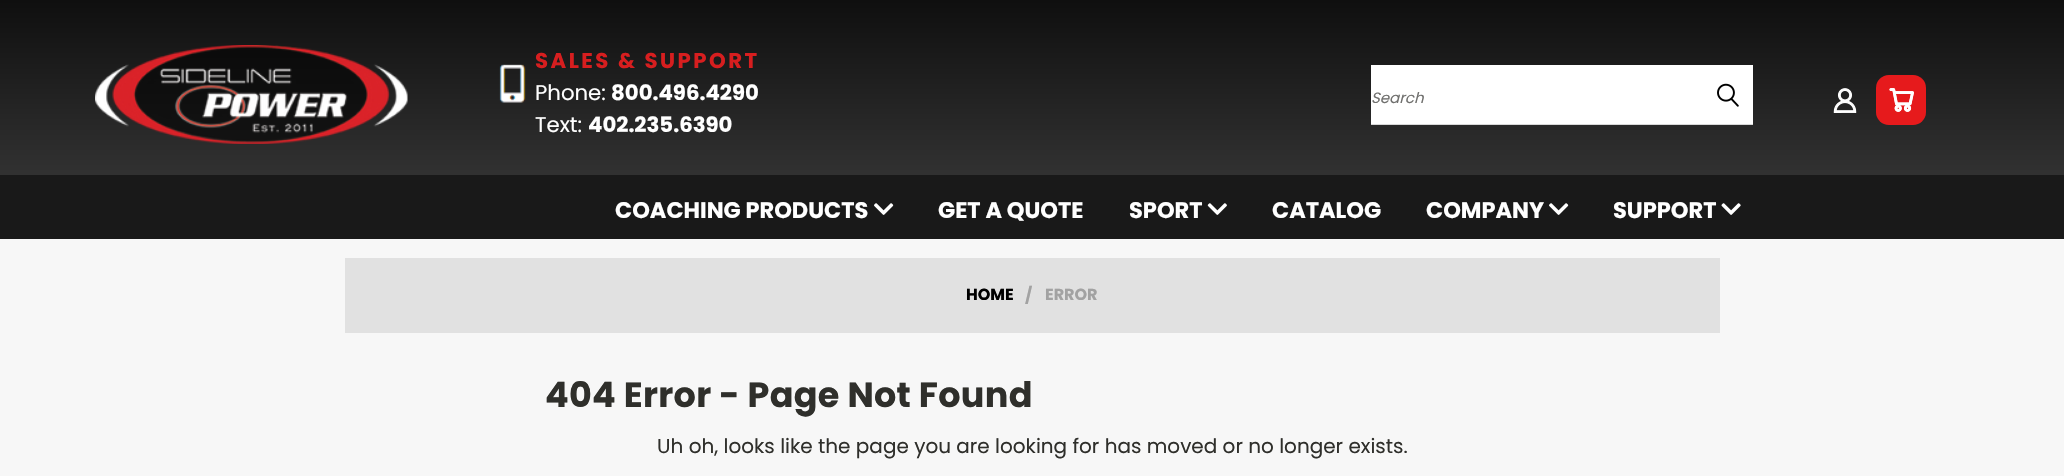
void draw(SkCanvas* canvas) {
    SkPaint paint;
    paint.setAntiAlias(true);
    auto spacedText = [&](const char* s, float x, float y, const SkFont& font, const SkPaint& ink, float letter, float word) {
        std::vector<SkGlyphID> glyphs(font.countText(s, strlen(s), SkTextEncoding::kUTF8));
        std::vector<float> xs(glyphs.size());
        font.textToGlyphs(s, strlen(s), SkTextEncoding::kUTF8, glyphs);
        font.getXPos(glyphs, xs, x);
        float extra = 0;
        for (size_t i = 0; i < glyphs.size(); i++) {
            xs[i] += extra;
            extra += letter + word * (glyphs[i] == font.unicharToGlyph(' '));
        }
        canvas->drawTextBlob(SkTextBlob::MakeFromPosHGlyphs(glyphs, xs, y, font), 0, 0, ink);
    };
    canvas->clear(0xFFF7F7F7);
    {
        const SkColor colors[] = {0xFF0F0F0F, 0xFF3E3E3E};
        const float stops[] = {0, 1};
        const SkPoint ends[] = {{1033, 0}, {1033, 239}};
        paint.setShader(SkGradientShader::MakeLinear(ends, colors, stops, 2, SkTileMode::kClamp));
        paint.setAlpha(255);
    }
    canvas->drawRect(SkRect::MakeXYWH(0, 0, 2064, 175), paint);
    canvas->drawImageRect(SkImages::DeferredFromEncodedData(SkData::MakeFromFileName("img1.png")), SkRect::MakeXYWH(95, 45, 313, 99), SkSamplingOptions());
    canvas->drawImageRect(SkImages::DeferredFromEncodedData(SkData::MakeFromFileName("img2.png")), SkRect::MakeXYWH(499, 64, 27, 39), SkSamplingOptions());
    SkFont font1(fontMgr->matchFamilyStyle("Poppins", SkFontStyle::Bold()), 21.25f);
    font1.setSubpixel(true);
    paint.setShader(nullptr);
    paint.setColor(0xFFD71E1F);
    spacedText("SALES & SUPPORT", 535, 68, font1, paint, 2.5f, 0);
    SkFont font2(fontMgr->matchFamilyStyle("Poppins", SkFontStyle::Normal()), 21.25f);
    font2.setSubpixel(true);
    paint.setColor(0xFFFFFFFF);
    canvas->drawString("Phone:", 535, 100, font2, paint);
    canvas->drawString("800.496.4290", 611, 100, font1, paint);
    canvas->drawString("Text:", 535, 132, font2, paint);
    canvas->drawString("402.235.6390", 588, 132, font1, paint);
    canvas->drawRect(SkRect::MakeXYWH(1371, 65, 382, 59), paint);
    paint.setColor(0xFFD7D7D7);
    canvas->drawRect(SkRect::MakeXYWH(1371, 124, 382, 1), paint);
    SkFont font3(fontMgr->matchFamilyStyle("Poppins", SkFontStyle::Italic()), 15);
    font3.setSubpixel(true);
    paint.setColor(0xFF70706E);
    canvas->drawString("Search", 1371, 103, font3, paint);
    canvas->drawImageRect(SkImages::DeferredFromEncodedData(SkData::MakeFromFileName("img3.png")), SkRect::MakeXYWH(1717, 83, 22, 24), SkSamplingOptions());
    canvas->drawImageRect(SkImages::DeferredFromEncodedData(SkData::MakeFromFileName("img4.png")), SkRect::MakeXYWH(1833, 88, 24, 25), SkSamplingOptions());
    paint.setColor(0xFFE61A1C);
    canvas->drawRoundRect(SkRect::MakeXYWH(1876, 75, 50, 50), 13, 13, paint);
    canvas->drawImageRect(SkImages::DeferredFromEncodedData(SkData::MakeFromFileName("img5.png")), SkRect::MakeXYWH(1889, 88, 25, 24), SkSamplingOptions());
    paint.setColor(0xFF191919);
    canvas->drawRect(SkRect::MakeXYWH(0, 175, 2064, 64), paint);
    SkFont font4(fontMgr->matchFamilyStyle("Poppins", SkFontStyle::Bold()), 22.5f);
    font4.setSubpixel(true);
    paint.setColor(0xFFFFFFFF);
    canvas->drawString("COACHING PRODUCTS", 615, 218, font4, paint);
    canvas->drawImageRect(SkImages::DeferredFromEncodedData(SkData::MakeFromFileName("img6.png")), SkRect::MakeXYWH(874, 203, 20, 12), SkSamplingOptions());
    canvas->drawString("GET A QUOTE", 938, 218, font4, paint);
    canvas->drawString("SPORT", 1129, 218, font4, paint);
    canvas->drawImageRect(SkImages::DeferredFromEncodedData(SkData::MakeFromFileName("img7.png")), SkRect::MakeXYWH(1207, 203, 20, 12), SkSamplingOptions());
    canvas->drawString("CATALOG", 1272, 218, font4, paint);
    canvas->drawString("COMPANY", 1426, 218, font4, paint);
    canvas->drawImageRect(SkImages::DeferredFromEncodedData(SkData::MakeFromFileName("img6.png")), SkRect::MakeXYWH(1549, 203, 20, 12), SkSamplingOptions());
    canvas->drawString("SUPPORT", 1613, 218, font4, paint);
    canvas->drawImageRect(SkImages::DeferredFromEncodedData(SkData::MakeFromFileName("img8.png")), SkRect::MakeXYWH(1721, 203, 20, 12), SkSamplingOptions());
    paint.setColor(0xFFE1E1E1);
    canvas->drawRect(SkRect::MakeXYWH(345, 258, 1375, 75), paint);
    SkFont font5(fontMgr->matchFamilyStyle("Poppins", SkFontStyle::Bold()), 16);
    font5.setSubpixel(true);
    paint.setColor(0xFF000000);
    canvas->drawString("HOME", 966, 300, font5, paint);
    paint.setColor(0xFFA2A2A2);
    canvas->drawString("/", 1025, 301, font5, paint);
    canvas->drawString("ERROR", 1045, 300, font5, paint);
    SkFont font6(fontMgr->matchFamilyStyle("Poppins", SkFontStyle::Bold()), 35);
    font6.setSubpixel(true);
    paint.setColor(0xFF2F2F2B);
    spacedText("404 Error - Page Not Found", 545, 407, font6, paint, 0.3f, 0);
    SkFont font7(fontMgr->matchFamilyStyle("Poppins", SkFontStyle::Normal()), 20);
    font7.setSubpixel(true);
    canvas->drawString("Uh oh, looks like the page you are looking for has moved or no longer exists.", 657, 453, font7, paint);
}
